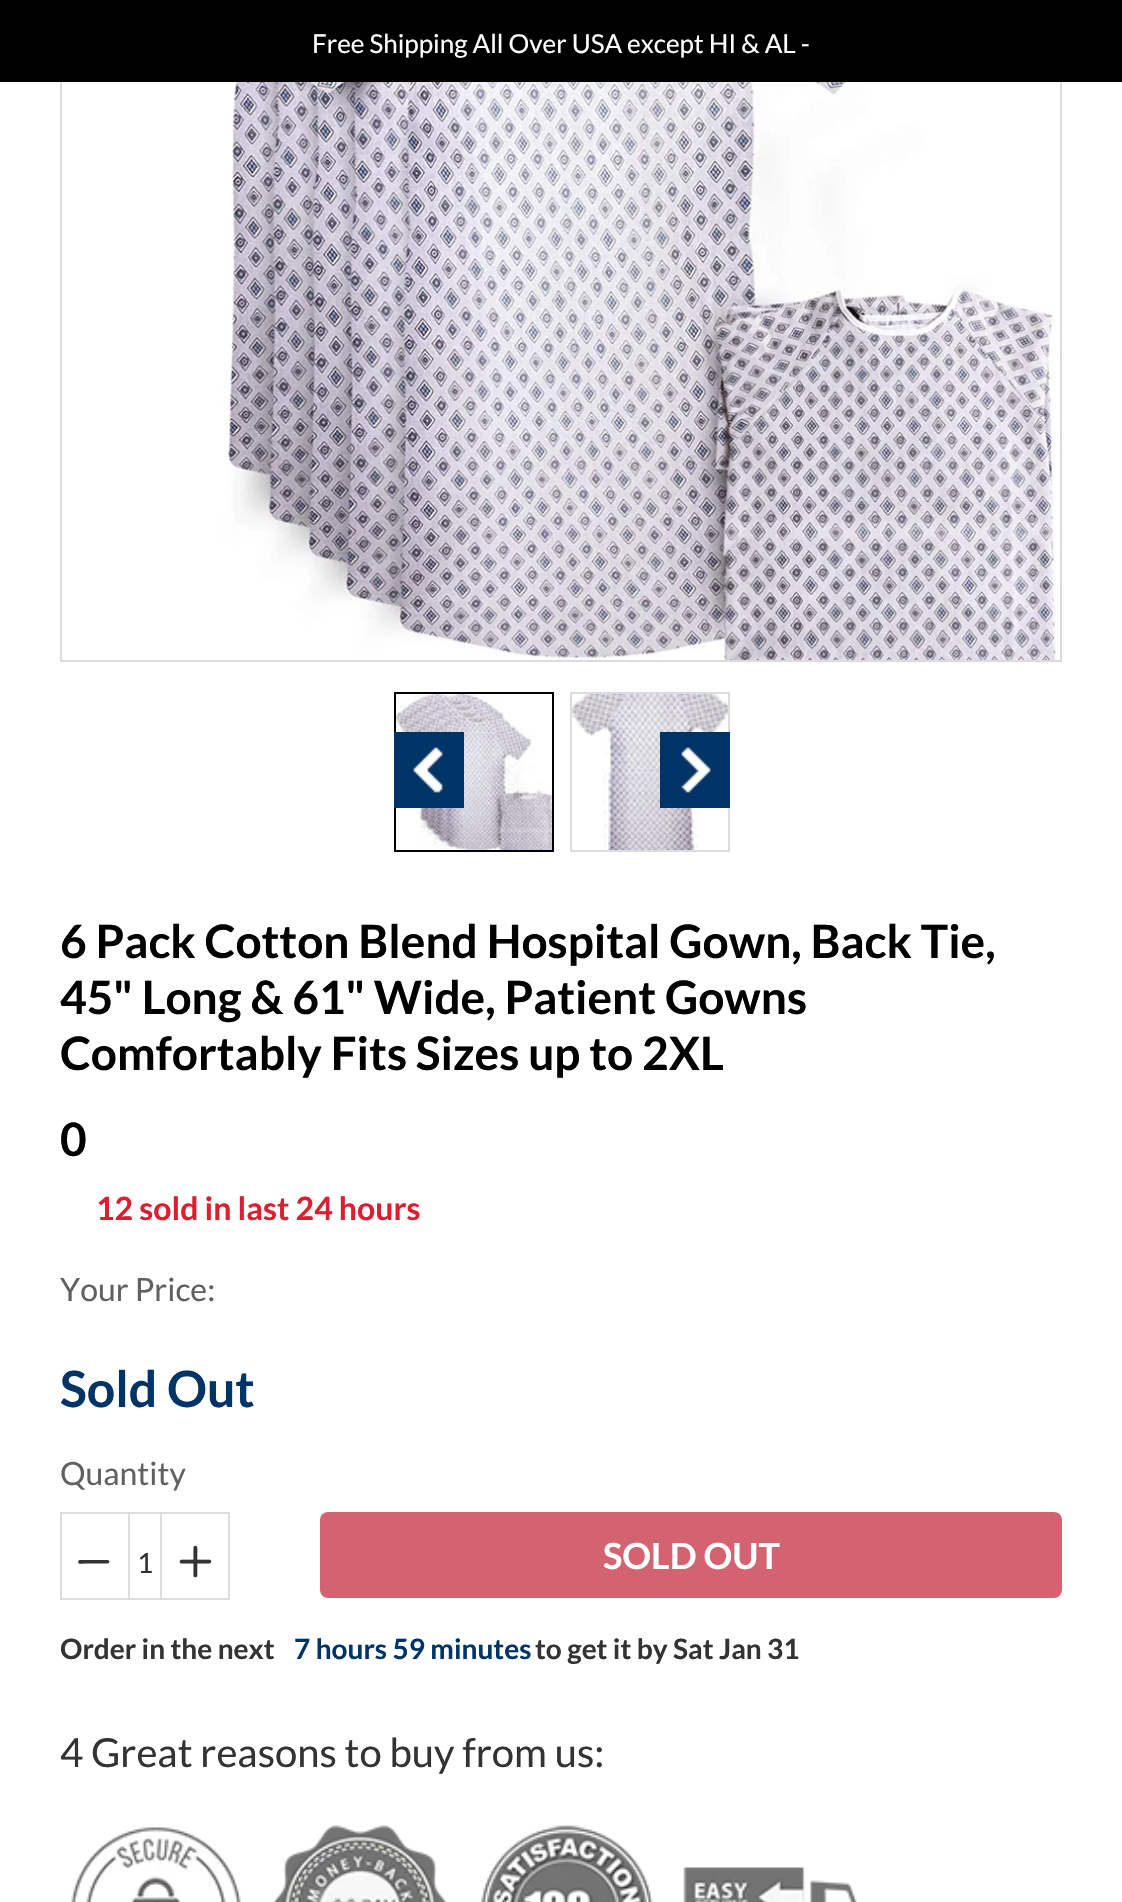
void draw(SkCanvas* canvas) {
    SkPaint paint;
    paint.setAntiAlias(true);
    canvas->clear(0xFFFFFFFF);
    paint.setStyle(SkPaint::kStroke_Style);
    paint.setStrokeWidth(2);
    paint.setColor(0xFFDDDCDC);
    canvas->drawRect(SkRect::MakeXYWH(61, -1, 1000, 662), paint);
    paint.setStyle(SkPaint::kFill_Style);
    paint.setColor(0xFF000000);
    canvas->drawRect(SkRect::MakeXYWH(0, 0, 1122, 82), paint);
    SkFont font1(fontMgr->matchFamilyStyle("Lato", SkFontStyle::Normal()), 26);
    font1.setSubpixel(true);
    paint.setColor(0xFFFFFFFF);
    canvas->drawString("Free Shipping All Over USA except HI & AL -", 312, 53, font1, paint);
    canvas->drawImageRect(SkImages::DeferredFromEncodedData(SkData::MakeFromFileName("img1.png")), SkRect::MakeXYWH(182, 82, 878, 578), SkSamplingOptions());
    paint.setStyle(SkPaint::kStroke_Style);
    paint.setColor(0xFF000000);
    canvas->drawRect(SkRect::MakeXYWH(395, 693, 158, 158), paint);
    canvas->drawImageRect(SkImages::DeferredFromEncodedData(SkData::MakeFromFileName("img2.png")), SkRect::MakeXYWH(396, 694, 156, 156), SkSamplingOptions());
    paint.setColor(0xFFDDDCDC);
    canvas->drawRect(SkRect::MakeXYWH(571, 693, 158, 158), paint);
    canvas->drawImageRect(SkImages::DeferredFromEncodedData(SkData::MakeFromFileName("img3.png")), SkRect::MakeXYWH(572, 694, 156, 156), SkSamplingOptions());
    paint.setStyle(SkPaint::kFill_Style);
    paint.setColor(0xFF003366);
    canvas->drawRect(SkRect::MakeXYWH(394, 732, 70, 76), paint);
    canvas->drawImageRect(SkImages::DeferredFromEncodedData(SkData::MakeFromFileName("img4.png")), SkRect::MakeXYWH(413, 747, 30, 46), SkSamplingOptions());
    canvas->drawRect(SkRect::MakeXYWH(660, 732, 70, 76), paint);
    canvas->drawImageRect(SkImages::DeferredFromEncodedData(SkData::MakeFromFileName("img5.png")), SkRect::MakeXYWH(681, 747, 30, 46), SkSamplingOptions());
    SkFont font2(fontMgr->matchFamilyStyle("Lato", SkFontStyle::Bold()), 46);
    font2.setSubpixel(true);
    paint.setColor(0xFF000000);
    canvas->drawString("6 Pack Cotton Blend Hospital Gown, Back Tie,", 60, 958, font2, paint);
    canvas->drawString("45\" Long & 61\" Wide, Patient Gowns", 60, 1014, font2, paint);
    canvas->drawString("Comfortably Fits Sizes up to 2XL", 60, 1070, font2, paint);
    canvas->drawString("0", 60, 1156, font2, paint);
    SkFont font3(fontMgr->matchFamilyStyle("Lato", SkFontStyle::Bold()), 32);
    font3.setSubpixel(true);
    paint.setColor(0xFFDD1E31);
    canvas->drawString("12 sold in last 24 hours", 96, 1220, font3, paint);
    SkFont font4(fontMgr->matchFamilyStyle("Lato", SkFontStyle::Normal()), 32);
    font4.setSubpixel(true);
    paint.setColor(0xFF606060);
    canvas->drawString("Your Price:", 60, 1301, font4, paint);
    SkFont font5(fontMgr->matchFamilyStyle("Lato", SkFontStyle::Bold()), 50);
    font5.setSubpixel(true);
    paint.setColor(0xFF003366);
    canvas->drawString("Sold Out", 60, 1407, font5, paint);
    paint.setColor(0xFF606060);
    canvas->drawString("Quantity", 60, 1485, font4, paint);
    paint.setStyle(SkPaint::kStroke_Style);
    paint.setColor(0xFFDDDCDC);
    canvas->drawRect(SkRect::MakeXYWH(61, 1513, 168, 86), paint);
    paint.setStyle(SkPaint::kFill_Style);
    canvas->drawRect(SkRect::MakeXYWH(128, 1512, 2, 88), paint);
    paint.setColor(0xFF333333);
    canvas->drawPath(SkPathBuilder().moveTo(107.5f, 1563.5f).lineTo(84.5f, 1563.5f).cubicTo(83.5f, 1563.5f, 79.5f, 1564.5f, 78.5f, 1563).cubicTo(77.5f, 1561.5f, 78.5f, 1560, 80, 1560).lineTo(107.5f, 1560).cubicTo(110, 1560, 110, 1563.5f, 107.5f, 1563.5f).close().detach(), paint);
    SkFont font6(fontMgr->matchFamilyStyle("Lato", SkFontStyle::Normal()), 28);
    font6.setSubpixel(true);
    canvas->drawString("1", 137, 1573, font6, paint);
    paint.setColor(0xFFDDDCDC);
    canvas->drawRect(SkRect::MakeXYWH(160, 1512, 2, 88), paint);
    canvas->drawImageRect(SkImages::DeferredFromEncodedData(SkData::MakeFromFileName("img6.png")), SkRect::MakeXYWH(179, 1545, 33, 33), SkSamplingOptions());
    paint.setColor(0xFFD36370);
    canvas->drawRoundRect(SkRect::MakeXYWH(320, 1512, 742, 86), 8, 8, paint);
    SkFont font7(fontMgr->matchFamilyStyle("Lato", SkFontStyle::Bold()), 36);
    font7.setSubpixel(true);
    paint.setColor(0xFFFFFFFF);
    canvas->drawString("SOLD OUT", 603, 1569, font7, paint);
    SkFont font8(fontMgr->matchFamilyStyle("Lato", SkFontStyle::Bold()), 28);
    font8.setSubpixel(true);
    paint.setColor(0xFF333333);
    canvas->drawString("Order in the next", 60, 1659, font8, paint);
    paint.setColor(0xFF003366);
    canvas->drawString("7 hours 59 minutes", 294, 1659, font8, paint);
    paint.setColor(0xFF333333);
    canvas->drawString("to get it by Sat Jan 31", 535, 1659, font8, paint);
    SkFont font9(fontMgr->matchFamilyStyle("Lato", SkFontStyle::Normal()), 40);
    font9.setSubpixel(true);
    canvas->drawString("4 Great reasons to buy from us:", 60, 1767, font9, paint);
    canvas->drawImageRect(SkImages::DeferredFromEncodedData(SkData::MakeFromFileName("img7.png")), SkRect::MakeXYWH(71, 1827, 170, 75), SkSamplingOptions());
    canvas->drawImageRect(SkImages::DeferredFromEncodedData(SkData::MakeFromFileName("img8.png")), SkRect::MakeXYWH(273, 1825, 174, 77), SkSamplingOptions());
    canvas->drawImageRect(SkImages::DeferredFromEncodedData(SkData::MakeFromFileName("img9.png")), SkRect::MakeXYWH(480, 1825, 173, 77), SkSamplingOptions());
    canvas->drawImageRect(SkImages::DeferredFromEncodedData(SkData::MakeFromFileName("img10.png")), SkRect::MakeXYWH(683, 1867, 174, 35), SkSamplingOptions());
}
